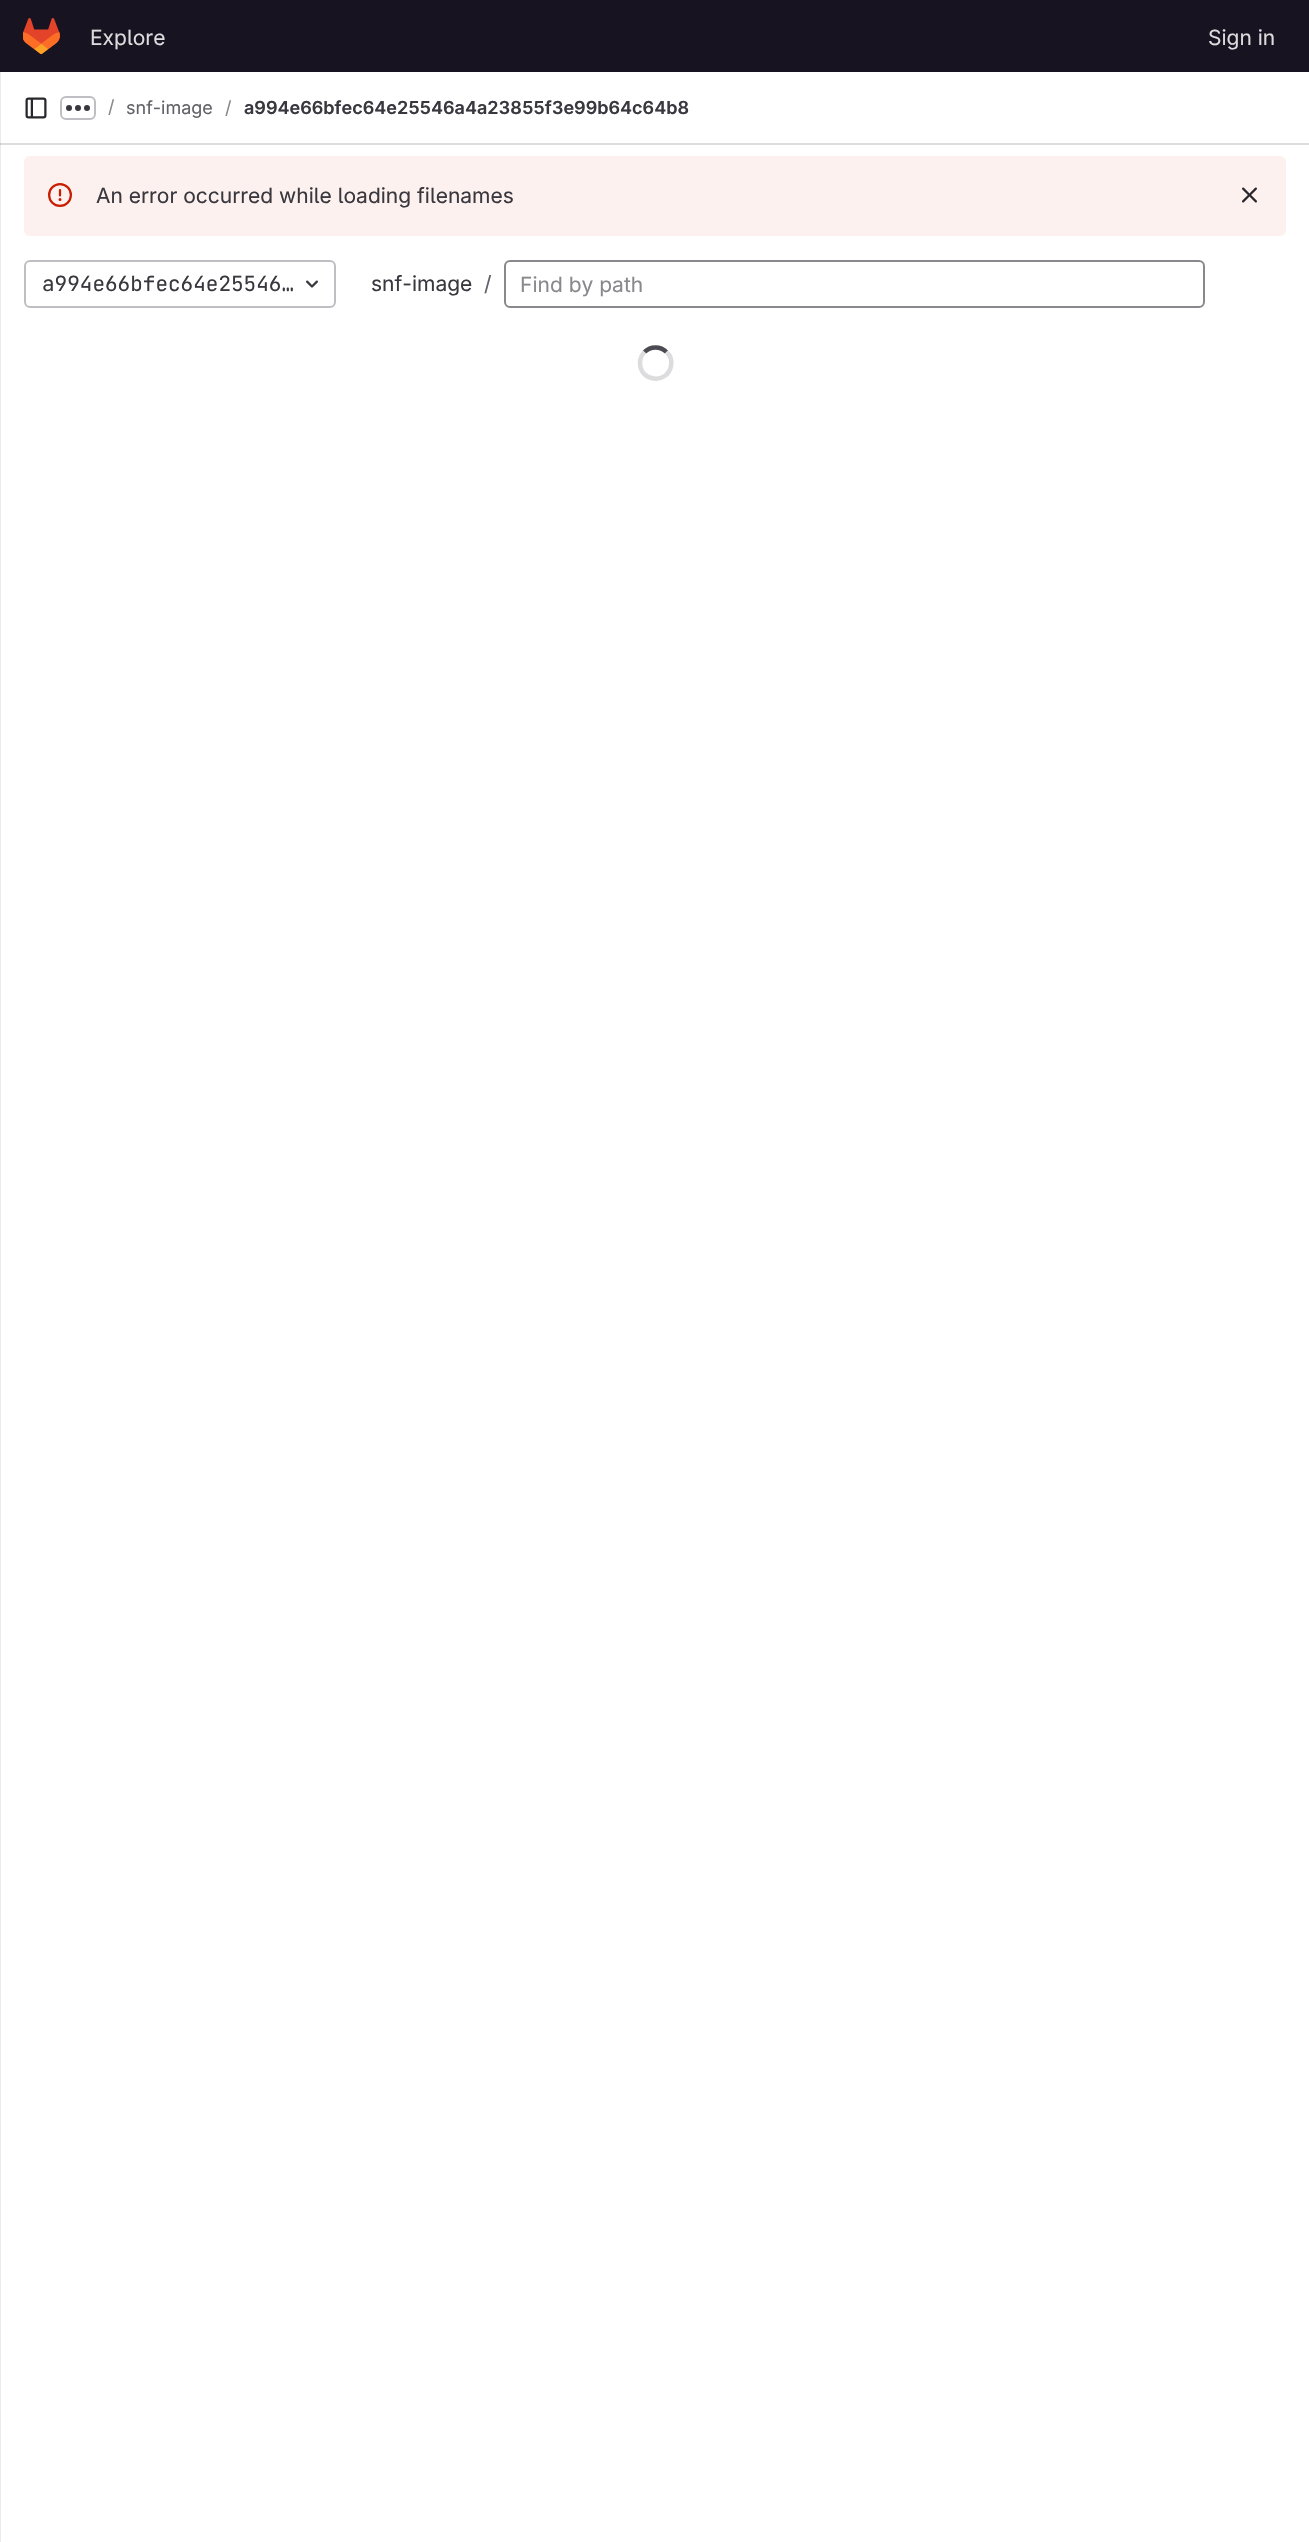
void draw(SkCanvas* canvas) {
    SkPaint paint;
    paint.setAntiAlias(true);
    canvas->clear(0xFFFFFFFF);
    paint.setColor(0xFFEBEBEB);
    canvas->drawRect(SkRect::MakeXYWH(0, 72, 1, 2470), paint);
    paint.setColor(0xFF171321);
    canvas->drawRect(SkRect::MakeXYWH(0, 0, 1309, 72), paint);
    canvas->drawImageRect(SkImages::DeferredFromEncodedData(SkData::MakeFromFileName("img1.png")), SkRect::MakeXYWH(23, 18, 37, 36), SkSamplingOptions());
    SkFont font1(fontMgr->matchFamilyStyle("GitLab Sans", SkFontStyle::Normal()), 21);
    font1.setSubpixel(true);
    paint.setColor(0xFFDCDCDE);
    canvas->drawString("Explore", 90, 45, font1, paint);
    canvas->drawString("Sign in", 1208, 45, font1, paint);
    canvas->drawRect(SkRect::MakeXYWH(0, 143, 1309, 2), paint);
    paint.setColor(0xFFCBCBCD);
    canvas->drawRect(SkRect::MakeXYWH(0, 143, 1, 2), paint);
    canvas->drawImageRect(SkImages::DeferredFromEncodedData(SkData::MakeFromFileName("img2.png")), SkRect::MakeXYWH(25, 97, 22, 22), SkSamplingOptions());
    paint.setStyle(SkPaint::kStroke_Style);
    paint.setStrokeWidth(2);
    paint.setColor(0xFFBFBFC3);
    canvas->drawRoundRect(SkRect::MakeXYWH(61, 97, 34, 22), 5, 5, paint);
    canvas->drawImageRect(SkImages::DeferredFromEncodedData(SkData::MakeFromFileName("img3.png")), SkRect::MakeXYWH(66, 105, 24, 6), SkSamplingOptions());
    SkFont font2(fontMgr->matchFamilyStyle("GitLab Sans", SkFontStyle::Normal()), 18);
    font2.setSubpixel(true);
    paint.setStyle(SkPaint::kFill_Style);
    paint.setColor(0xFF89888D);
    canvas->drawString("/", 108, 113, font2, paint);
    paint.setColor(0xFF626168);
    canvas->drawString("snf-image", 126, 114, font2, paint);
    paint.setColor(0xFF89888D);
    canvas->drawString("/", 225, 114, font2, paint);
    SkFont font3(fontMgr->matchFamilyStyle("GitLab Sans", SkFontStyle(600, SkFontStyle::kNormal_Width, SkFontStyle::kUpright_Slant)), 18);
    font3.setSubpixel(true);
    paint.setColor(0xFF3A383F);
    canvas->drawString("a994e66bfec64e25546a4a23855f3e99b64c64b8", 244, 114, font3, paint);
    paint.setColor(0xFFFCF1EF);
    canvas->drawRoundRect(SkRect::MakeXYWH(24, 156, 1262, 80), 6, 6, paint);
    canvas->drawImageRect(SkImages::DeferredFromEncodedData(SkData::MakeFromFileName("img4.png")), SkRect::MakeXYWH(48, 183, 24, 24), SkSamplingOptions());
    paint.setColor(0xFF3A383F);
    canvas->drawString("An error occurred while loading filenames", 96, 203, font1, paint);
    canvas->drawImageRect(SkImages::DeferredFromEncodedData(SkData::MakeFromFileName("img5.png")), SkRect::MakeXYWH(1242, 187, 15, 16), SkSamplingOptions());
    paint.setStyle(SkPaint::kStroke_Style);
    paint.setColor(0xFFBFBFC3);
    canvas->drawRoundRect(SkRect::MakeXYWH(25, 261, 310, 46), 5, 5, paint);
    SkFont font4(fontMgr->matchFamilyStyle("JetBrains Mono", SkFontStyle::Normal()), 21);
    font4.setSubpixel(true);
    paint.setStyle(SkPaint::kFill_Style);
    paint.setColor(0xFF3A383F);
    canvas->drawString("a994e66bfec64e25546…", 42, 291, font4, paint);
    canvas->drawImageRect(SkImages::DeferredFromEncodedData(SkData::MakeFromFileName("img6.png")), SkRect::MakeXYWH(306, 280, 12, 8), SkSamplingOptions());
    canvas->drawString("snf-image", 371, 291, font1, paint);
    paint.setColor(0xFF626168);
    canvas->drawString("/", 484, 291, font1, paint);
    paint.setStyle(SkPaint::kStroke_Style);
    paint.setColor(0xFF89888D);
    canvas->drawRoundRect(SkRect::MakeXYWH(505, 261, 699, 46), 5, 5, paint);
    paint.setStyle(SkPaint::kFill_Style);
    canvas->drawString("Find by path", 520, 292, font1, paint);
    paint.setStyle(SkPaint::kStroke_Style);
    paint.setStrokeWidth(4.5f);
    paint.setColor(0xFF4C4B51);
    canvas->drawPath(SkPathBuilder().moveTo(644.5f, 352).cubicTo(650.5f, 346, 660.5f, 346, 666.5f, 352).detach(), paint);
    paint.setColor(0xFFDCDCDE);
    canvas->drawPath(SkPathBuilder().moveTo(666.5f, 352).cubicTo(670.5f, 355.5f, 672, 361, 671, 366).cubicTo(667.5f, 384.5f, 640, 382, 640, 363).cubicTo(640, 359, 641.5f, 355, 644.5f, 352).detach(), paint);
}
